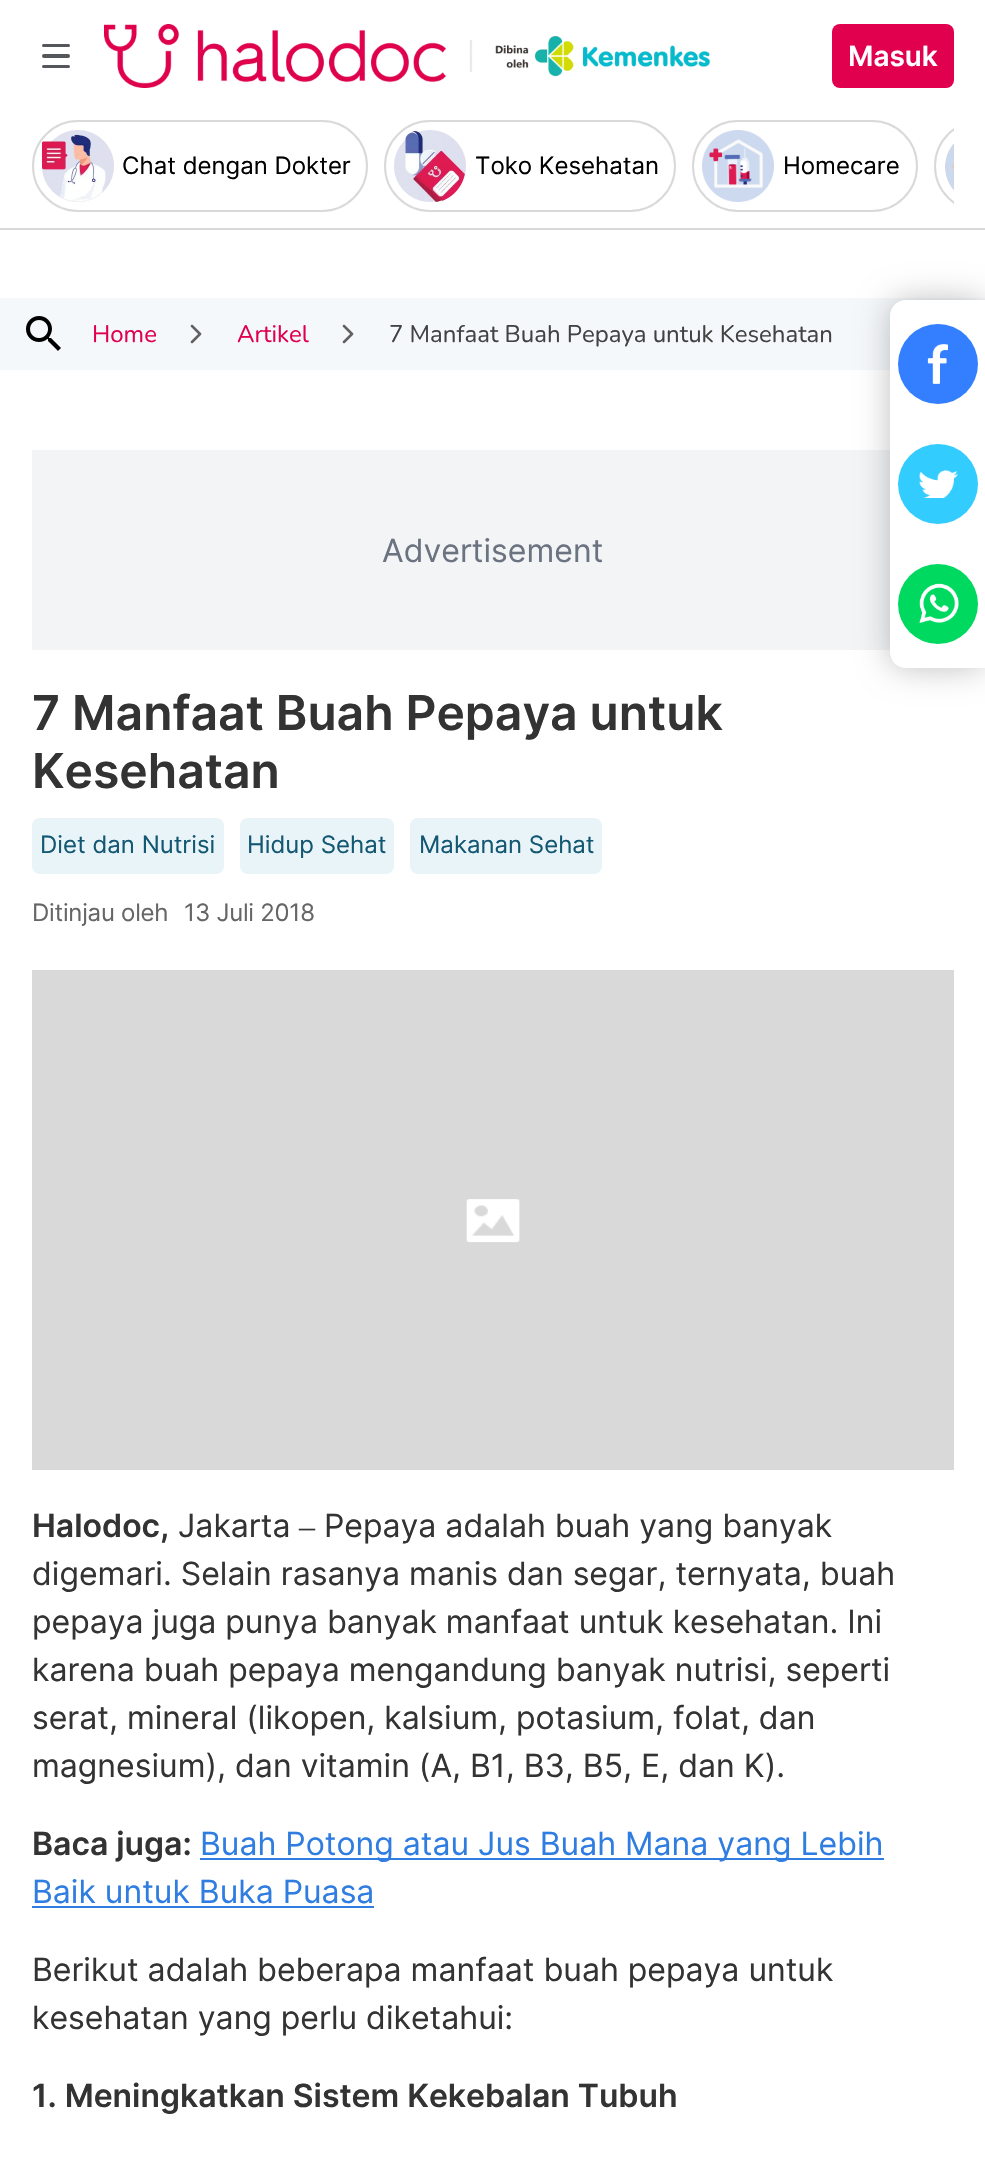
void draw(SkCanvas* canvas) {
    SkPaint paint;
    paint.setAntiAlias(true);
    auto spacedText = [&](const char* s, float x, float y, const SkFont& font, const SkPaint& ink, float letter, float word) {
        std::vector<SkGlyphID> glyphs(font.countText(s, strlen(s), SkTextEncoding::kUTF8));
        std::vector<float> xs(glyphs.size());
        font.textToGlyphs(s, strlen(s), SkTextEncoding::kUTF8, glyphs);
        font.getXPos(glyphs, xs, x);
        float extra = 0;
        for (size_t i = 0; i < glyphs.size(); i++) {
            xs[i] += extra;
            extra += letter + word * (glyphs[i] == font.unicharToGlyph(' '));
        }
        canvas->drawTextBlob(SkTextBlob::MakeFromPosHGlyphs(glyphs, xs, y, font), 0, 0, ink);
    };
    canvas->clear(0xFFFFFFFF);
    paint.setColor(0xFFD9D9D9);
    canvas->drawRect(SkRect::MakeXYWH(0, 228, 985, 2), paint);
    paint.setColor(0xFF53565A);
    canvas->drawRoundRect(SkRect::MakeXYWH(42, 44, 28, 3), 1.5f, 1.5f, paint);
    canvas->drawRoundRect(SkRect::MakeXYWH(42, 54, 28, 4), 2, 2, paint);
    canvas->drawRoundRect(SkRect::MakeXYWH(42, 65, 28, 3), 1.5f, 1.5f, paint);
    canvas->drawImageRect(SkImages::DeferredFromEncodedData(SkData::MakeFromFileName("img1.png")), SkRect::MakeXYWH(104, 24, 606, 64), SkSamplingOptions());
    paint.setColor(0xFFE0004D);
    canvas->drawRoundRect(SkRect::MakeXYWH(832, 24, 122, 64), 8, 8, paint);
    SkFont font1(fontMgr->matchFamilyStyle("Inter", SkFontStyle(600, SkFontStyle::kNormal_Width, SkFontStyle::kUpright_Slant)), 28);
    font1.setSubpixel(true);
    paint.setColor(0xFFFFFFFF);
    canvas->drawString("Masuk", 848, 66, font1, paint);
    paint.setStyle(SkPaint::kStroke_Style);
    paint.setStrokeWidth(2);
    paint.setColor(0xFFD9D9D9);
    canvas->drawRoundRect(SkRect::MakeXYWH(33, 121, 334, 90), 45, 45, paint);
    canvas->drawImageRect(SkImages::DeferredFromEncodedData(SkData::MakeFromFileName("img2.png")), SkRect::MakeXYWH(42, 130, 72, 72), SkSamplingOptions());
    SkFont font2(fontMgr->matchFamilyStyle("Inter", SkFontStyle::Normal()), 24);
    font2.setSubpixel(true);
    paint.setStyle(SkPaint::kFill_Style);
    paint.setColor(0xFF000000);
    canvas->drawString("Chat dengan Dokter", 122, 174, font2, paint);
    paint.setStyle(SkPaint::kStroke_Style);
    paint.setColor(0xFFD9D9D9);
    canvas->drawRoundRect(SkRect::MakeXYWH(385, 121, 290, 90), 45, 45, paint);
    canvas->drawImageRect(SkImages::DeferredFromEncodedData(SkData::MakeFromFileName("img3.png")), SkRect::MakeXYWH(394, 130, 72, 72), SkSamplingOptions());
    paint.setStyle(SkPaint::kFill_Style);
    paint.setColor(0xFF000000);
    canvas->drawString("Toko Kesehatan", 475, 174, font2, paint);
    paint.setStyle(SkPaint::kStroke_Style);
    paint.setColor(0xFFD9D9D9);
    canvas->drawRoundRect(SkRect::MakeXYWH(693, 121, 224, 90), 45, 45, paint);
    canvas->drawImageRect(SkImages::DeferredFromEncodedData(SkData::MakeFromFileName("img4.png")), SkRect::MakeXYWH(702, 130, 72, 72), SkSamplingOptions());
    paint.setStyle(SkPaint::kFill_Style);
    paint.setColor(0xFF000000);
    canvas->drawString("Homecare", 783, 174, font2, paint);
    canvas->save();
    canvas->clipRect(SkRect::MakeXYWH(32, 120, 922, 92));
    paint.setStyle(SkPaint::kStroke_Style);
    paint.setColor(0xFFD9D9D9);
    canvas->drawRoundRect(SkRect::MakeXYWH(935, 121, 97, 90), 45, 45, paint);
    canvas->restore();
    canvas->drawImageRect(SkImages::DeferredFromEncodedData(SkData::MakeFromFileName("img5.png")), SkRect::MakeXYWH(945, 143, 9, 47), SkSamplingOptions());
    paint.setStyle(SkPaint::kFill_Style);
    paint.setColor(0xFFF5F8FB);
    canvas->drawRect(SkRect::MakeXYWH(0, 298, 985, 72), paint);
    canvas->drawImageRect(SkImages::DeferredFromEncodedData(SkData::MakeFromFileName("img6.png")), SkRect::MakeXYWH(26, 316, 35, 35), SkSamplingOptions());
    SkFont font3(fontMgr->matchFamilyStyle("Nunito", SkFontStyle::Normal()), 24);
    font3.setSubpixel(true);
    paint.setColor(0xFFE0004D);
    canvas->drawString("Home", 92, 342, font3, paint);
    canvas->drawImageRect(SkImages::DeferredFromEncodedData(SkData::MakeFromFileName("img7.png")), SkRect::MakeXYWH(190, 324, 12, 20), SkSamplingOptions());
    canvas->drawString("Artikel", 237, 342, font3, paint);
    canvas->drawImageRect(SkImages::DeferredFromEncodedData(SkData::MakeFromFileName("img7.png")), SkRect::MakeXYWH(342, 324, 12, 20), SkSamplingOptions());
    paint.setColor(0xFF424242);
    canvas->drawString("7 Manfaat Buah Pepaya untuk Kesehatan", 389, 342, font3, paint);
    paint.setColor(0xFFF3F4F6);
    canvas->drawRect(SkRect::MakeXYWH(32, 450, 858, 200), paint);
    paint.setColor(0x40000000);
    paint.setMaskFilter(SkMaskFilter::MakeBlur(kNormal_SkBlurStyle, 16));
    canvas->drawRoundRect(SkRect::MakeXYWH(890, 300, 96, 368), 16, 16, paint);
    paint.setMaskFilter(nullptr);
    paint.setColor(0xFFFFFFFF);
    canvas->drawPath(SkPathBuilder().moveTo(906, 300).lineTo(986, 300).lineTo(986, 668).lineTo(906, 668).cubicTo(897, 668, 890, 661, 890, 652).lineTo(890, 316).cubicTo(890, 307, 897, 300, 906, 300).close().detach(), paint);
    paint.setColor(0xFF337FFF);
    canvas->drawCircle(938, 364, 40, paint);
    canvas->drawImageRect(SkImages::DeferredFromEncodedData(SkData::MakeFromFileName("img8.png")), SkRect::MakeXYWH(927, 344, 22, 40), SkSamplingOptions());
    paint.setColor(0xFF33CCFF);
    canvas->drawCircle(938, 484, 40, paint);
    canvas->drawImageRect(SkImages::DeferredFromEncodedData(SkData::MakeFromFileName("img9.png")), SkRect::MakeXYWH(919, 470, 39, 28), SkSamplingOptions());
    paint.setColor(0xFF00D95F);
    canvas->drawCircle(938, 604, 40, paint);
    canvas->drawImageRect(SkImages::DeferredFromEncodedData(SkData::MakeFromFileName("img10.png")), SkRect::MakeXYWH(919, 583, 40, 40), SkSamplingOptions());
    SkFont font4(fontMgr->matchFamilyStyle("Inter", SkFontStyle::Normal()), 32);
    font4.setSubpixel(true);
    paint.setColor(0xFF6B7280);
    canvas->drawString("Advertisement", 382, 562, font4, paint);
    SkFont font5(fontMgr->matchFamilyStyle("Inter", SkFontStyle(600, SkFontStyle::kNormal_Width, SkFontStyle::kUpright_Slant)), 48);
    font5.setSubpixel(true);
    paint.setColor(0xFF333333);
    canvas->drawString("7 Manfaat Buah Pepaya untuk", 32, 730, font5, paint);
    canvas->drawString("Kesehatan", 32, 788, font5, paint);
    paint.setColor(0xFFE9F4F9);
    canvas->drawRoundRect(SkRect::MakeXYWH(32, 818, 192, 56), 8, 8, paint);
    paint.setColor(0xFF135773);
    canvas->drawString("Diet dan Nutrisi", 40, 853, font2, paint);
    paint.setColor(0xFFE9F4F9);
    canvas->drawRoundRect(SkRect::MakeXYWH(240, 818, 154, 56), 8, 8, paint);
    paint.setColor(0xFF135773);
    canvas->drawString("Hidup Sehat", 247, 853, font2, paint);
    paint.setColor(0xFFE9F4F9);
    canvas->drawRoundRect(SkRect::MakeXYWH(410, 818, 192, 56), 8, 8, paint);
    paint.setColor(0xFF135773);
    canvas->drawString("Makanan Sehat", 419, 853, font2, paint);
    paint.setColor(0xFF666666);
    spacedText("Ditinjau oleh", 32, 921, font2, paint, -0.25f, 0);
    spacedText("13 Juli 2018", 184, 921, font2, paint, -0.25f, 0);
    canvas->drawImageRect(SkImages::DeferredFromEncodedData(SkData::MakeFromFileName("img11.png")), SkRect::MakeXYWH(32, 970, 922, 500), SkSamplingOptions());
    SkFont font6(fontMgr->matchFamilyStyle("Inter", SkFontStyle(600, SkFontStyle::kNormal_Width, SkFontStyle::kUpright_Slant)), 32);
    font6.setSubpixel(true);
    paint.setColor(0xFF333333);
    canvas->drawString("Halodoc,", 32, 1537, font6, paint);
    canvas->drawString("Jakarta", 178, 1537, font4, paint);
    SkFont font7(fontMgr->matchFamilyStyle("Liberation Serif", SkFontStyle::Normal()), 32);
    font7.setSubpixel(true);
    canvas->drawString("–", 299, 1537, font7, paint);
    canvas->drawString("Pepaya adalah buah yang banyak", 324, 1537, font4, paint);
    canvas->drawString("digemari. Selain rasanya manis dan segar, ternyata, buah", 32, 1585, font4, paint);
    canvas->drawString("pepaya juga punya banyak manfaat untuk kesehatan. Ini", 32, 1633, font4, paint);
    canvas->drawString("karena buah pepaya mengandung banyak nutrisi, seperti", 32, 1681, font4, paint);
    canvas->drawString("serat, mineral (likopen, kalsium, potasium, folat, dan", 32, 1729, font4, paint);
    canvas->drawString("magnesium), dan vitamin (A, B1, B3, B5, E, dan K).", 32, 1777, font4, paint);
    canvas->drawString("Baca juga:", 32, 1855, font6, paint);
    paint.setColor(0xFF2F7DE1);
    canvas->drawRect(SkRect::MakeXYWH(200, 1858, 684, 2), paint);
    canvas->drawString("Buah Potong atau Jus Buah Mana yang Lebih", 200, 1855, font4, paint);
    canvas->drawString("Baik untuk Buka Puasa", 32, 1903, font4, paint);
    canvas->drawRect(SkRect::MakeXYWH(32, 1906, 342, 2), paint);
    paint.setColor(0xFF333333);
    canvas->drawString("Berikut adalah beberapa manfaat buah pepaya untuk", 32, 1981, font4, paint);
    canvas->drawString("kesehatan yang perlu diketahui:", 32, 2029, font4, paint);
    canvas->drawString("1. Meningkatkan Sistem Kekebalan Tubuh", 32, 2107, font6, paint);
}
